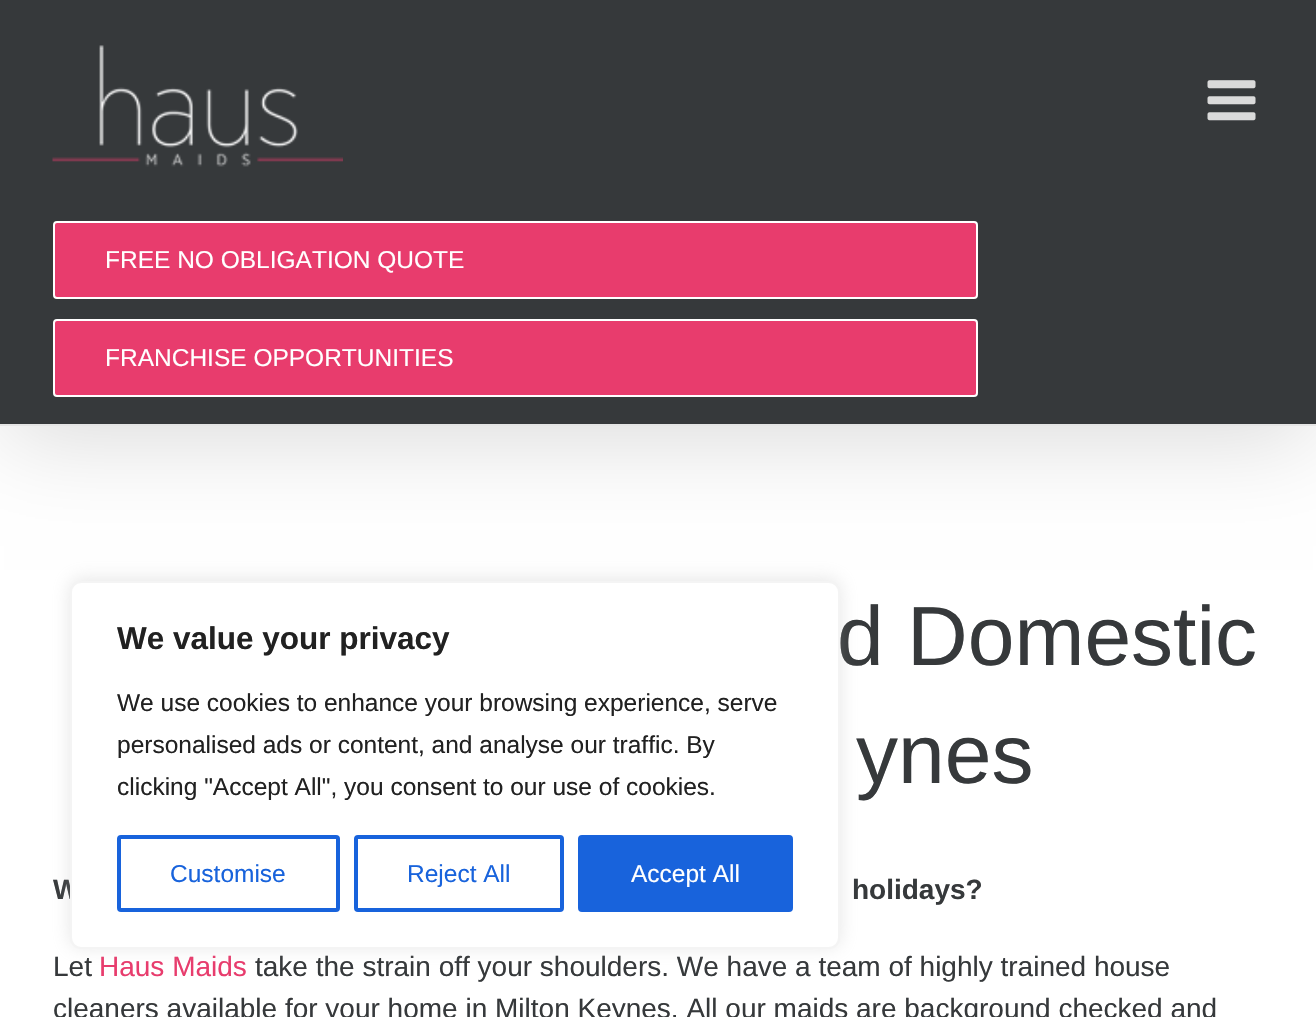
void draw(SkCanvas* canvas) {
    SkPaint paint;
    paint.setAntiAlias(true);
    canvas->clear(0xFFFFFFFF);
    paint.setColor(0x24000000);
    paint.setMaskFilter(SkMaskFilter::MakeBlur(kNormal_SkBlurStyle, 44));
    canvas->drawRect(SkRect::MakeXYWH(4, 21, 1309, 418), paint);
    paint.setMaskFilter(nullptr);
    paint.setColor(0xFF36393B);
    canvas->drawRect(SkRect::MakeXYWH(0, 0, 1316, 424), paint);
    paint.setColor(0xFFE5E5E5);
    canvas->drawRect(SkRect::MakeXYWH(0, 424, 1316, 2), paint);
    canvas->drawImageRect(SkImages::DeferredFromEncodedData(SkData::MakeFromFileName("img1.png")), SkRect::MakeXYWH(1207, 80, 49, 41), SkSamplingOptions());
    canvas->drawImageRect(SkImages::DeferredFromEncodedData(SkData::MakeFromFileName("img2.png")), SkRect::MakeXYWH(52, 45, 291, 122), SkSamplingOptions());
    paint.setColor(0xFFE83C6D);
    canvas->drawRoundRect(SkRect::MakeXYWH(54, 222, 923, 76), 3, 3, paint);
    paint.setStyle(SkPaint::kStroke_Style);
    paint.setStrokeWidth(2);
    paint.setColor(0xFFFFFFFF);
    canvas->drawRoundRect(SkRect::MakeXYWH(54, 222, 923, 76), 3, 3, paint);
    SkFont font1(fontMgr->matchFamilyStyle("Liberation Sans", SkFontStyle::Normal()), 24.5f);
    font1.setSubpixel(true);
    paint.setStyle(SkPaint::kFill_Style);
    canvas->drawString("FREE NO OBLIGATION QUOTE", 105, 268, font1, paint);
    paint.setColor(0xFFE83C6D);
    canvas->drawRoundRect(SkRect::MakeXYWH(54, 320, 923, 76), 3, 3, paint);
    paint.setStyle(SkPaint::kStroke_Style);
    paint.setColor(0xFFFFFFFF);
    canvas->drawRoundRect(SkRect::MakeXYWH(54, 320, 923, 76), 3, 3, paint);
    paint.setStyle(SkPaint::kFill_Style);
    canvas->drawString("FRANCHISE OPPORTUNITIES", 105, 366, font1, paint);
    SkFont font2(fontMgr->matchFamilyStyle("Liberation Sans", SkFontStyle::Normal()), 84);
    font2.setSubpixel(true);
    paint.setColor(0xFF36393B);
    canvas->drawString("d Domestic", 837, 665, font2, paint);
    canvas->drawString("ynes", 856, 783, font2, paint);
    SkFont font3(fontMgr->matchFamilyStyle("Liberation Sans", SkFontStyle::Bold()), 28);
    font3.setSubpixel(true);
    canvas->drawString("W", 53, 899, font3, paint);
    canvas->drawString("holidays?", 852, 899, font3, paint);
    SkFont font4(fontMgr->matchFamilyStyle("Liberation Sans", SkFontStyle::Normal()), 28);
    font4.setSubpixel(true);
    canvas->drawString("Let", 53, 976, font4, paint);
    paint.setColor(0xFFE83C6D);
    canvas->drawString("Haus Maids", 99, 976, font4, paint);
    paint.setColor(0xFF36393B);
    canvas->drawString("take the strain off your shoulders. We have a team of highly trained house", 255, 976, font4, paint);
    canvas->drawString("cleaners available for your home in Milton Keynes. All our maids are background checked and", 53, 1018, font4, paint);
    paint.setColor(0x4DACABAB);
    paint.setMaskFilter(SkMaskFilter::MakeBlur(kNormal_SkBlurStyle, 9));
    canvas->drawRoundRect(SkRect::MakeXYWH(70, 579, 770, 368), 11, 11, paint);
    paint.setMaskFilter(nullptr);
    paint.setColor(0xFFFFFFFF);
    canvas->drawRoundRect(SkRect::MakeXYWH(71, 582, 768, 366), 10, 10, paint);
    paint.setStyle(SkPaint::kStroke_Style);
    paint.setColor(0xFFF4F4F4);
    canvas->drawRoundRect(SkRect::MakeXYWH(71, 582, 768, 366), 10, 10, paint);
    SkFont font5(fontMgr->matchFamilyStyle("Liberation Sans", SkFontStyle::Bold()), 31.5f);
    font5.setSubpixel(true);
    paint.setStyle(SkPaint::kFill_Style);
    paint.setColor(0xFF212121);
    canvas->drawString("We value your privacy", 117, 649, font5, paint);
    canvas->drawString("We use cookies to enhance your browsing experience, serve", 117, 711, font1, paint);
    canvas->drawString("personalised ads or content, and analyse our traffic. By", 117, 753, font1, paint);
    canvas->drawString("clicking \"Accept All\", you consent to our use of cookies.", 117, 795, font1, paint);
    paint.setStyle(SkPaint::kStroke_Style);
    paint.setStrokeWidth(4);
    paint.setColor(0xFF1863DC);
    canvas->drawRoundRect(SkRect::MakeXYWH(119, 837, 219, 73), 2, 2, paint);
    paint.setStyle(SkPaint::kFill_Style);
    canvas->drawString("Customise", 170, 882, font1, paint);
    paint.setStyle(SkPaint::kStroke_Style);
    canvas->drawRoundRect(SkRect::MakeXYWH(356, 837, 206, 73), 2, 2, paint);
    paint.setStyle(SkPaint::kFill_Style);
    canvas->drawString("Reject All", 407, 882, font1, paint);
    canvas->drawRoundRect(SkRect::MakeXYWH(580, 837, 211, 73), 2, 2, paint);
    paint.setStyle(SkPaint::kStroke_Style);
    canvas->drawRoundRect(SkRect::MakeXYWH(580, 837, 211, 73), 2, 2, paint);
    paint.setStyle(SkPaint::kFill_Style);
    paint.setColor(0xFFFFFFFF);
    canvas->drawString("Accept All", 631, 882, font1, paint);
}
